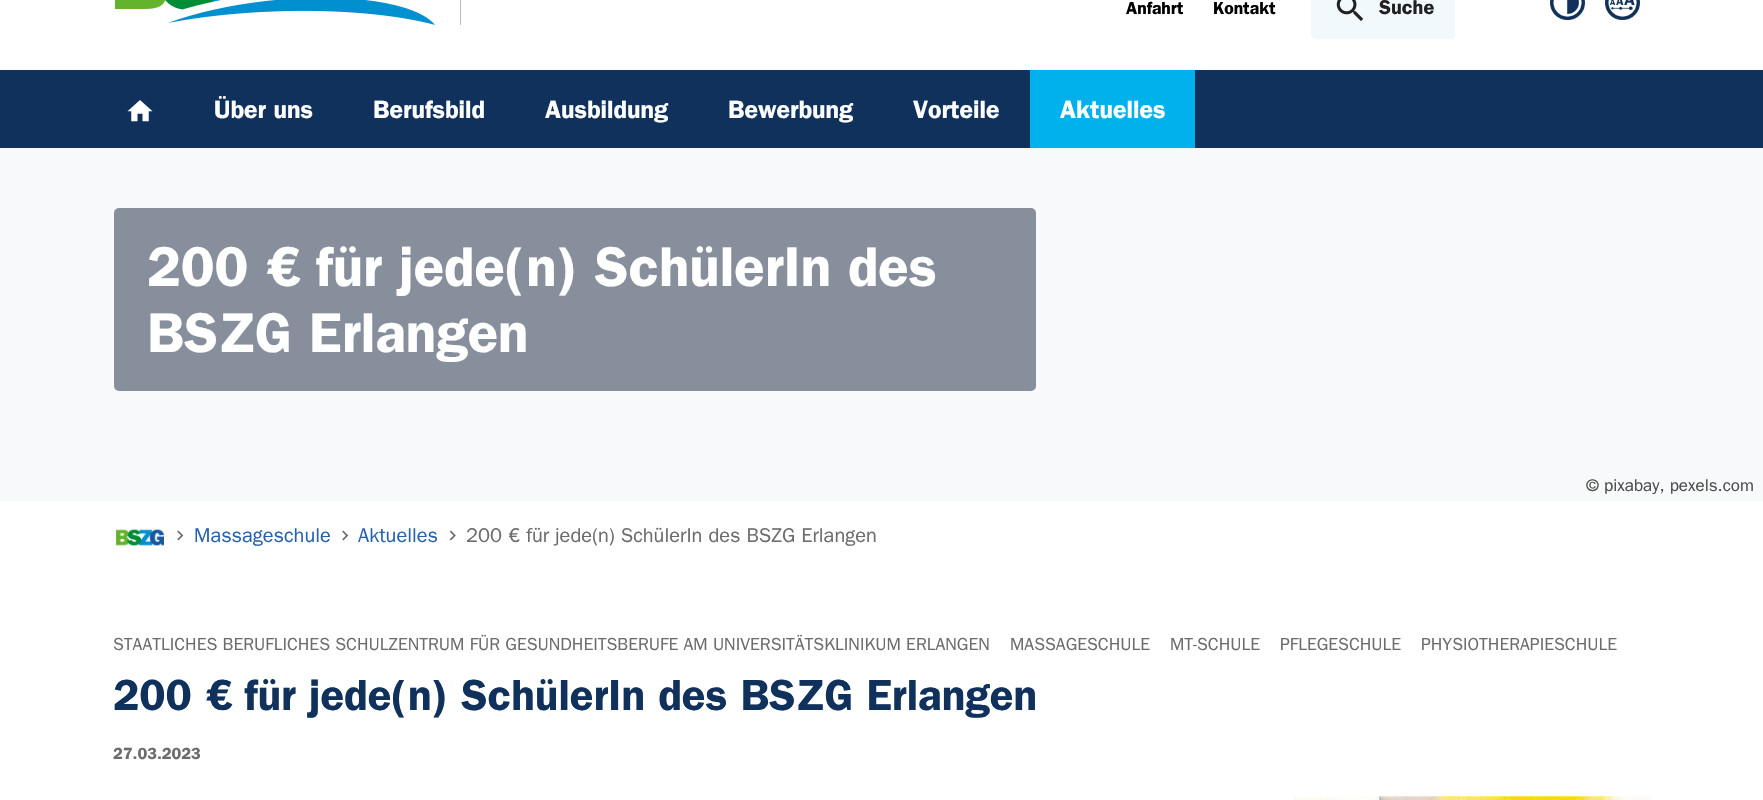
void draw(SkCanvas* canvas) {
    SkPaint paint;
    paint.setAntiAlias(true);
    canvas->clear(0xFFFFFFFF);
    canvas->drawImageRect(SkImages::DeferredFromEncodedData(SkData::MakeFromFileName("img1.png")), SkRect::MakeXYWH(115, 0, 320, 25), SkSamplingOptions());
    paint.setColor(0xFFBDBDBD);
    canvas->drawRect(SkRect::MakeXYWH(460, 0, 1, 25), paint);
    SkFont font1(fontMgr->matchFamilyStyle("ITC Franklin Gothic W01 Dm", SkFontStyle::Normal()), 17.5f);
    font1.setSubpixel(true);
    paint.setColor(0xFF000000);
    canvas->drawString("Anfahrt", 1126, 14, font1, paint);
    canvas->drawString("Kontakt", 1213, 14, font1, paint);
    paint.setColor(0xFFF1F9FD);
    canvas->drawRoundRect(SkRect::MakeXYWH(1311, -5, 144, 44), 5, 5, paint);
    canvas->drawImageRect(SkImages::DeferredFromEncodedData(SkData::MakeFromFileName("img2.png")), SkRect::MakeXYWH(1336, 0, 28, 21), SkSamplingOptions());
    SkFont font2(fontMgr->matchFamilyStyle("ITC Franklin Gothic W01 Dm", SkFontStyle::Normal()), 20);
    font2.setSubpixel(true);
    paint.setColor(0xFF212121);
    canvas->drawString("Suche", 1379, 14, font2, paint);
    canvas->drawImageRect(SkImages::DeferredFromEncodedData(SkData::MakeFromFileName("img3.png")), SkRect::MakeXYWH(1550, 0, 35, 20), SkSamplingOptions());
    canvas->drawImageRect(SkImages::DeferredFromEncodedData(SkData::MakeFromFileName("img4.png")), SkRect::MakeXYWH(1605, 0, 35, 20), SkSamplingOptions());
    paint.setColor(0xFF10315B);
    canvas->drawRect(SkRect::MakeXYWH(0, 70, 1763, 78), paint);
    canvas->drawImageRect(SkImages::DeferredFromEncodedData(SkData::MakeFromFileName("img5.png")), SkRect::MakeXYWH(127, 100, 26, 22), SkSamplingOptions());
    SkFont font3(fontMgr->matchFamilyStyle("ITC Franklin Gothic W01 Dm", SkFontStyle::Normal()), 25);
    font3.setSubpixel(true);
    paint.setColor(0xFFFFFFFF);
    canvas->drawString("Über uns", 214, 118, font3, paint);
    canvas->drawString("Berufsbild", 373, 118, font3, paint);
    canvas->drawString("Ausbildung", 545, 118, font3, paint);
    canvas->drawString("Bewerbung", 728, 118, font3, paint);
    canvas->drawString("Vorteile", 913, 118, font3, paint);
    paint.setColor(0xFF00B1EB);
    canvas->drawRect(SkRect::MakeXYWH(1030, 70, 165, 78), paint);
    paint.setColor(0xFFFFFFFF);
    canvas->drawString("Aktuelles", 1060, 118, font3, paint);
    paint.setColor(0xFFF8F9FA);
    canvas->drawRect(SkRect::MakeXYWH(0, 148, 1763, 353), paint);
    paint.setColor(0xFF868F9B);
    canvas->drawRoundRect(SkRect::MakeXYWH(114, 208, 922, 183), 5, 5, paint);
    SkFont font4(fontMgr->matchFamilyStyle("ITC Franklin Gothic W01 Dm", SkFontStyle::Normal()), 56.25f);
    font4.setSubpixel(true);
    paint.setColor(0xFFFFFFFF);
    canvas->drawString("200 € für jede(n) SchülerIn des", 147, 286, font4, paint);
    canvas->drawString("BSZG Erlangen", 147, 352, font4, paint);
    SkFont font5(fontMgr->matchFamilyStyle("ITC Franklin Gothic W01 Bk", SkFontStyle::Normal()), 17);
    font5.setSubpixel(true);
    paint.setColor(0xFF4C4C4C);
    canvas->drawString("© pixabay, pexels.com", 1586, 491, font5, paint);
    canvas->drawImageRect(SkImages::DeferredFromEncodedData(SkData::MakeFromFileName("img6.png")), SkRect::MakeXYWH(116, 529, 48, 17), SkSamplingOptions());
    canvas->drawImageRect(SkImages::DeferredFromEncodedData(SkData::MakeFromFileName("img7.png")), SkRect::MakeXYWH(177, 530, 7, 11), SkSamplingOptions());
    SkFont font6(fontMgr->matchFamilyStyle("ITC Franklin Gothic W01 Bk", SkFontStyle::Normal()), 20);
    font6.setSubpixel(true);
    paint.setColor(0xFF2761AC);
    canvas->drawString("Massageschule", 194, 542, font6, paint);
    canvas->drawImageRect(SkImages::DeferredFromEncodedData(SkData::MakeFromFileName("img7.png")), SkRect::MakeXYWH(342, 530, 7, 11), SkSamplingOptions());
    canvas->drawString("Aktuelles", 358, 542, font6, paint);
    canvas->drawImageRect(SkImages::DeferredFromEncodedData(SkData::MakeFromFileName("img8.png")), SkRect::MakeXYWH(449, 530, 7, 11), SkSamplingOptions());
    paint.setColor(0xFF6C6C6C);
    canvas->drawString("200 € für jede(n) SchülerIn des BSZG Erlangen", 466, 542, font6, paint);
    SkFont font7(fontMgr->matchFamilyStyle("ITC Franklin Gothic W01 Bk", SkFontStyle::Normal()), 17.5f);
    font7.setSubpixel(true);
    canvas->drawString("STAATLICHES BERUFLICHES SCHULZENTRUM FÜR GESUNDHEITSBERUFE AM UNIVERSITÄTSKLINIKUM ERLANGEN", 113, 650, font7, paint);
    canvas->drawString("MASSAGESCHULE", 1010, 650, font7, paint);
    canvas->drawString("MT-SCHULE", 1170, 650, font7, paint);
    canvas->drawString("PFLEGESCHULE", 1280, 650, font7, paint);
    canvas->drawString("PHYSIOTHERAPIESCHULE", 1421, 650, font7, paint);
    SkFont font8(fontMgr->matchFamilyStyle("ITC Franklin Gothic W01 Dm", SkFontStyle::Normal()), 43.75f);
    font8.setSubpixel(true);
    paint.setColor(0xFF10315B);
    canvas->drawString("200 € für jede(n) SchülerIn des BSZG Erlangen", 113, 710, font8, paint);
    SkFont font9(fontMgr->matchFamilyStyle("ITC Franklin Gothic W01 Dm", SkFontStyle::Normal()), 16.25f);
    font9.setSubpixel(true);
    paint.setColor(0xFF6C6C6C);
    canvas->drawString("27.03.2023", 113, 759, font9, paint);
    canvas->drawImageRect(SkImages::DeferredFromEncodedData(SkData::MakeFromFileName("img9.png")), SkRect::MakeXYWH(1295, 796, 356, 4), SkSamplingOptions());
}
